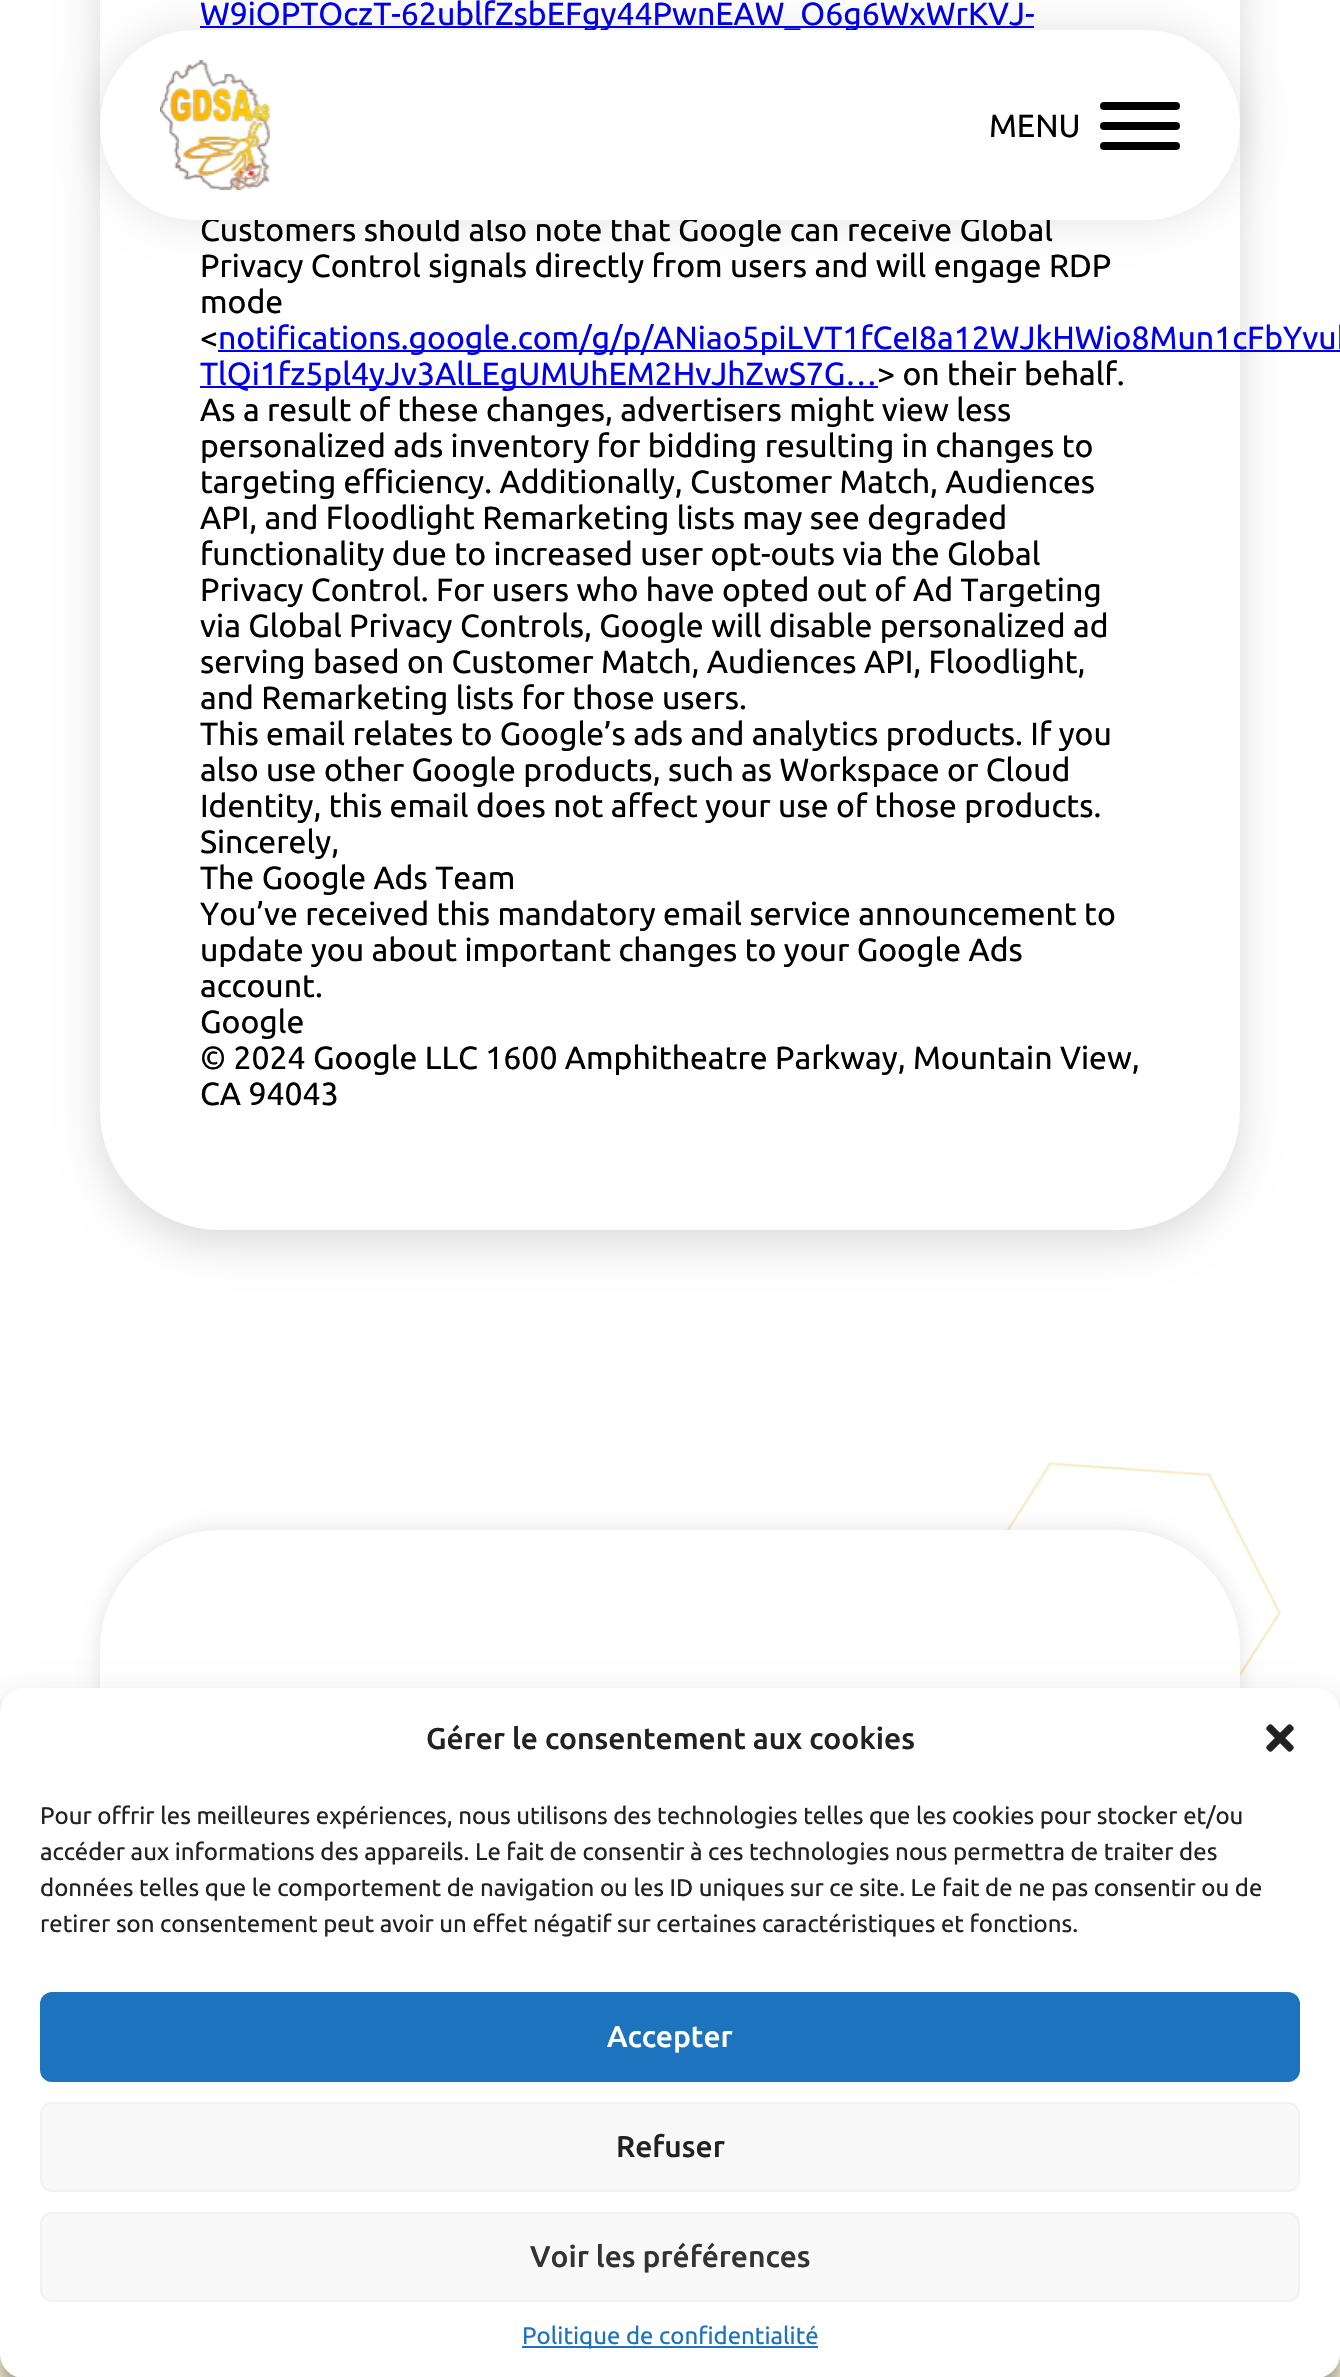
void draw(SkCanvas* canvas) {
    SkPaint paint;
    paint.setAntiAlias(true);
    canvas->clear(0xFFFFFFFF);
    paint.setColor(0x24000000);
    paint.setMaskFilter(SkMaskFilter::MakeBlur(kNormal_SkBlurStyle, 20));
    canvas->drawRoundRect(SkRect::MakeXYWH(100, -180, 1140, 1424), 120, 120, paint);
    paint.setMaskFilter(nullptr);
    paint.setColor(0xFFFFFFFF);
    canvas->drawRoundRect(SkRect::MakeXYWH(100, -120, 1140, 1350), 120, 120, paint);
    paint.setColor(0xFF0000EE);
    canvas->drawRect(SkRect::MakeXYWH(200, 26, 834, 2), paint);
    SkFont font1(fontMgr->matchFamilyStyle("Ubuntu", SkFontStyle::Normal()), 32);
    font1.setSubpixel(true);
    canvas->drawString("W9iOPTOczT-62ublfZsbEFgy44PwnEAW_O6g6WxWrKVJ-", 200, 25, font1, paint);
    paint.setColor(0xFF000000);
    canvas->drawString("Customers should also note that Google can receive Global", 200, 241, font1, paint);
    canvas->drawString("Privacy Control signals directly from users and will engage RDP", 200, 277, font1, paint);
    canvas->drawString("mode", 200, 313, font1, paint);
    canvas->drawString("<", 200, 349, font1, paint);
    paint.setColor(0xFF0000EE);
    canvas->drawRect(SkRect::MakeXYWH(218, 350, 1122, 2), paint);
    canvas->drawString("notifications.google.com/g/p/ANiao5piLVT1fCeI8a12WJkHWio8Mun1cFbYvuh", 218, 349, font1, paint);
    canvas->drawRect(SkRect::MakeXYWH(200, 386, 678, 2), paint);
    canvas->drawString("TlQi1fz5pl4yJv3AlLEgUMUhEM2HvJhZwS7G…", 200, 385, font1, paint);
    paint.setColor(0xFF000000);
    canvas->drawString("> on their behalf.", 877, 385, font1, paint);
    canvas->drawString("As a result of these changes, advertisers might view less", 200, 421, font1, paint);
    canvas->drawString("personalized ads inventory for bidding resulting in changes to", 200, 457, font1, paint);
    canvas->drawString("targeting efficiency. Additionally, Customer Match, Audiences", 200, 493, font1, paint);
    canvas->drawString("API, and Floodlight Remarketing lists may see degraded", 200, 529, font1, paint);
    canvas->drawString("functionality due to increased user opt-outs via the Global", 200, 565, font1, paint);
    canvas->drawString("Privacy Control. For users who have opted out of Ad Targeting", 200, 601, font1, paint);
    canvas->drawString("via Global Privacy Controls, Google will disable personalized ad", 200, 637, font1, paint);
    canvas->drawString("serving based on Customer Match, Audiences API, Floodlight,", 200, 673, font1, paint);
    canvas->drawString("and Remarketing lists for those users.", 200, 709, font1, paint);
    canvas->drawString("This email relates to Google’s ads and analytics products. If you", 200, 745, font1, paint);
    canvas->drawString("also use other Google products, such as Workspace or Cloud", 200, 781, font1, paint);
    canvas->drawString("Identity, this email does not affect your use of those products.", 200, 817, font1, paint);
    canvas->drawString("Sincerely,", 200, 853, font1, paint);
    canvas->drawString("The Google Ads Team", 200, 889, font1, paint);
    canvas->drawString("You’ve received this mandatory email service announcement to", 200, 925, font1, paint);
    canvas->drawString("update you about important changes to your Google Ads", 200, 961, font1, paint);
    canvas->drawString("account.", 200, 997, font1, paint);
    canvas->drawString("Google", 200, 1033, font1, paint);
    canvas->drawString("© 2024 Google LLC 1600 Amphitheatre Parkway, Mountain View,", 200, 1069, font1, paint);
    canvas->drawString("CA 94043", 200, 1105, font1, paint);
    paint.setColor(0x1C000000);
    paint.setMaskFilter(SkMaskFilter::MakeBlur(kNormal_SkBlurStyle, 20));
    canvas->drawRoundRect(SkRect::MakeXYWH(100, 30, 1140, 190), 95, 95, paint);
    paint.setMaskFilter(nullptr);
    paint.setColor(0xFFFFFFFF);
    canvas->drawRoundRect(SkRect::MakeXYWH(100, 30, 1140, 190), 95, 95, paint);
    canvas->drawImageRect(SkImages::DeferredFromEncodedData(SkData::MakeFromFileName("img1.png")), SkRect::MakeXYWH(160, 60, 110, 130), SkSamplingOptions());
    paint.setColor(0xFF000000);
    canvas->drawString("MENU", 989, 137, font1, paint);
    canvas->drawRoundRect(SkRect::MakeXYWH(1100, 102, 80, 8), 4, 4, paint);
    canvas->drawRoundRect(SkRect::MakeXYWH(1100, 122, 80, 8), 4, 4, paint);
    canvas->drawRoundRect(SkRect::MakeXYWH(1100, 142, 80, 8), 4, 4, paint);
    canvas->drawImageRect(SkImages::DeferredFromEncodedData(SkData::MakeFromFileName("img2.png")), SkRect::MakeXYWH(1006, 1462, 275, 216), SkSamplingOptions());
    paint.setColor(0xFFFFF9DC);
    canvas->drawRect(SkRect::MakeXYWH(0, 2354, 1340, 23), paint);
    paint.setColor(0x1C000000);
    paint.setMaskFilter(SkMaskFilter::MakeBlur(kNormal_SkBlurStyle, 10));
    canvas->drawRoundRect(SkRect::MakeXYWH(100, 1530, 1140, 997), 120, 120, paint);
    paint.setMaskFilter(nullptr);
    paint.setColor(0xFFFFFFFF);
    canvas->drawPath(SkPathBuilder().moveTo(220, 1530).lineTo(1120, 1530).cubicTo(1186.5f, 1530, 1240, 1583.5f, 1240, 1650).lineTo(1240, 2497).lineTo(100, 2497).lineTo(100, 1650).cubicTo(100, 1583.5f, 153.5f, 1530, 220, 1530).close().detach(), paint);
    paint.setColor(0x3B000000);
    paint.setMaskFilter(SkMaskFilter::MakeBlur(kNormal_SkBlurStyle, 6));
    canvas->drawRoundRect(SkRect::MakeXYWH(0, 1700, 1340, 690), 24, 24, paint);
    paint.setMaskFilter(nullptr);
    paint.setColor(0x30000000);
    paint.setMaskFilter(SkMaskFilter::MakeBlur(kNormal_SkBlurStyle, 20));
    canvas->drawRoundRect(SkRect::MakeXYWH(0, 1708, 1340, 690), 24, 24, paint);
    paint.setMaskFilter(nullptr);
    paint.setColor(0xFFFFFFFF);
    canvas->drawRoundRect(SkRect::MakeXYWH(0, 1688, 1340, 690), 24, 24, paint);
    SkFont font2(fontMgr->matchFamilyStyle("Ubuntu", SkFontStyle(500, SkFontStyle::kNormal_Width, SkFontStyle::kUpright_Slant)), 30);
    font2.setSubpixel(true);
    paint.setColor(0xFF222222);
    canvas->drawString("Gérer le consentement aux cookies", 426, 1749, font2, paint);
    canvas->drawImageRect(SkImages::DeferredFromEncodedData(SkData::MakeFromFileName("img3.png")), SkRect::MakeXYWH(1266, 1724, 28, 28), SkSamplingOptions());
    SkFont font3(fontMgr->matchFamilyStyle("Ubuntu", SkFontStyle::Normal()), 24);
    font3.setSubpixel(true);
    canvas->drawString("Pour offrir les meilleures expériences, nous utilisons des technologies telles que les cookies pour stocker et/ou", 40, 1824, font3, paint);
    canvas->drawString("accéder aux informations des appareils. Le fait de consentir à ces technologies nous permettra de traiter des", 40, 1860, font3, paint);
    canvas->drawString("données telles que le comportement de navigation ou les ID uniques sur ce site. Le fait de ne pas consentir ou de", 40, 1896, font3, paint);
    canvas->drawString("retirer son consentement peut avoir un effet négatif sur certaines caractéristiques et fonctions.", 40, 1932, font3, paint);
    paint.setColor(0xFF1E73BE);
    canvas->drawRoundRect(SkRect::MakeXYWH(41, 1993, 1258, 88), 11, 11, paint);
    paint.setStyle(SkPaint::kStroke_Style);
    paint.setStrokeWidth(2);
    canvas->drawRoundRect(SkRect::MakeXYWH(41, 1993, 1258, 88), 11, 11, paint);
    paint.setStyle(SkPaint::kFill_Style);
    paint.setColor(0xFFFFFFFF);
    canvas->drawString("Accepter", 607, 2047, font2, paint);
    paint.setColor(0xFFF9F9F9);
    canvas->drawRoundRect(SkRect::MakeXYWH(41, 2103, 1258, 88), 11, 11, paint);
    paint.setStyle(SkPaint::kStroke_Style);
    paint.setColor(0xFFF2F2F2);
    canvas->drawRoundRect(SkRect::MakeXYWH(41, 2103, 1258, 88), 11, 11, paint);
    paint.setStyle(SkPaint::kFill_Style);
    paint.setColor(0xFF222222);
    canvas->drawString("Refuser", 616, 2157, font2, paint);
    paint.setColor(0xFFF9F9F9);
    canvas->drawRoundRect(SkRect::MakeXYWH(41, 2213, 1258, 88), 11, 11, paint);
    paint.setStyle(SkPaint::kStroke_Style);
    paint.setColor(0xFFF2F2F2);
    canvas->drawRoundRect(SkRect::MakeXYWH(41, 2213, 1258, 88), 11, 11, paint);
    paint.setStyle(SkPaint::kFill_Style);
    paint.setColor(0xFF333333);
    canvas->drawString("Voir les préférences", 530, 2267, font2, paint);
    paint.setColor(0xFF1E73BE);
    canvas->drawRect(SkRect::MakeXYWH(522, 2346, 296, 2), paint);
    canvas->drawString("Politique de confidentialité", 522, 2344, font3, paint);
}
